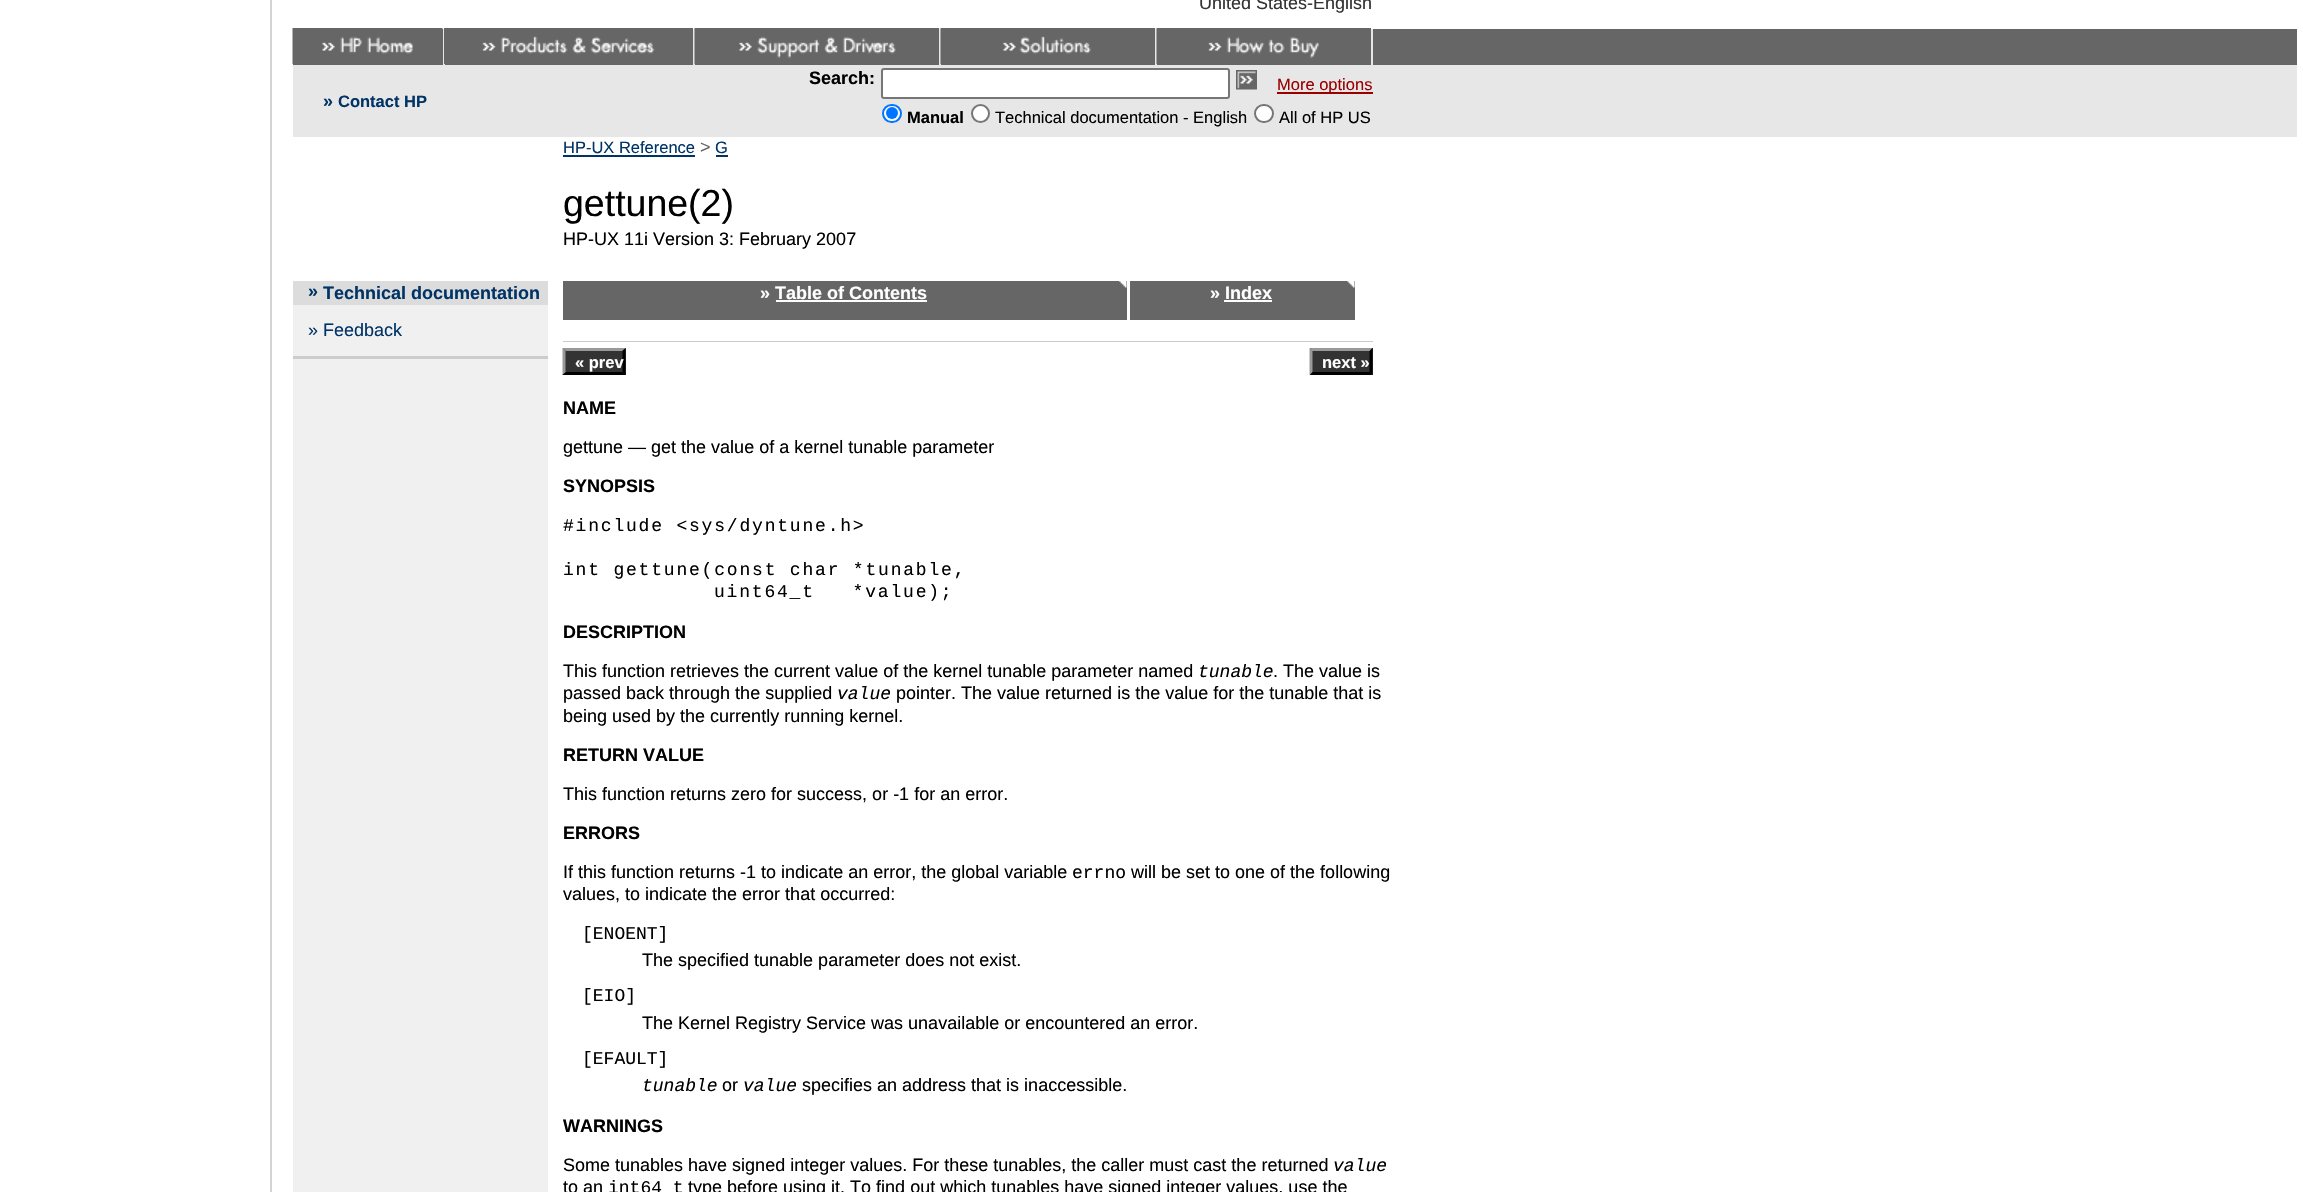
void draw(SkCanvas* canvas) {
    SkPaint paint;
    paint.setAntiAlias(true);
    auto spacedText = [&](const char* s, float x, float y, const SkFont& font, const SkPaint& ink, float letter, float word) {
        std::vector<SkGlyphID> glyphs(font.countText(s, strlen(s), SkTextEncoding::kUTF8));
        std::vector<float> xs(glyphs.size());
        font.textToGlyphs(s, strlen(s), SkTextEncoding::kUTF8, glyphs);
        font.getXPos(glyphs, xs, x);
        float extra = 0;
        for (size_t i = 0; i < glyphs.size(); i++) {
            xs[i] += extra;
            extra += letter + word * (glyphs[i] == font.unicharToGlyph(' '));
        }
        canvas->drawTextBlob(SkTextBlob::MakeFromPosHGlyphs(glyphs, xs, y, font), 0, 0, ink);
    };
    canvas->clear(0xFFFFFFFF);
    paint.setColor(0xFFD3D3D3);
    canvas->drawRect(SkRect::MakeXYWH(270, 0, 2, 1192), paint);
    SkFont font1(fontMgr->matchFamilyStyle("Liberation Sans", SkFontStyle::Normal()), 18);
    font1.setSubpixel(true);
    paint.setColor(0xFF333333);
    canvas->drawString("United States-English", 1199, 9, font1, paint);
    paint.setColor(0xFF666666);
    canvas->drawRect(SkRect::MakeXYWH(293, 29, 2004, 36), paint);
    canvas->drawImageRect(SkImages::DeferredFromEncodedData(SkData::MakeFromFileName("img1.png")), SkRect::MakeXYWH(292, 28, 151, 36), SkSamplingOptions());
    paint.setColor(0xFFE7E7E7);
    canvas->drawRect(SkRect::MakeXYWH(443, 29, 2, 36), paint);
    canvas->drawImageRect(SkImages::DeferredFromEncodedData(SkData::MakeFromFileName("img2.png")), SkRect::MakeXYWH(444, 28, 249, 36), SkSamplingOptions());
    canvas->drawRect(SkRect::MakeXYWH(693, 29, 2, 36), paint);
    canvas->drawImageRect(SkImages::DeferredFromEncodedData(SkData::MakeFromFileName("img3.png")), SkRect::MakeXYWH(694, 28, 245, 36), SkSamplingOptions());
    canvas->drawRect(SkRect::MakeXYWH(939, 29, 2, 36), paint);
    canvas->drawImageRect(SkImages::DeferredFromEncodedData(SkData::MakeFromFileName("img4.png")), SkRect::MakeXYWH(940, 28, 215, 36), SkSamplingOptions());
    canvas->drawRect(SkRect::MakeXYWH(1155, 29, 2, 36), paint);
    canvas->drawImageRect(SkImages::DeferredFromEncodedData(SkData::MakeFromFileName("img5.png")), SkRect::MakeXYWH(1156, 28, 215, 36), SkSamplingOptions());
    canvas->drawRect(SkRect::MakeXYWH(1371, 29, 2, 36), paint);
    canvas->drawRect(SkRect::MakeXYWH(293, 65, 2004, 72), paint);
    SkFont font2(fontMgr->matchFamilyStyle("Liberation Sans", SkFontStyle::Bold()), 18);
    font2.setSubpixel(true);
    paint.setColor(0xFF003366);
    canvas->drawString("»", 323, 107, font2, paint);
    SkFont font3(fontMgr->matchFamilyStyle("Liberation Sans", SkFontStyle::Bold()), 16.5f);
    font3.setSubpixel(true);
    canvas->drawString("Contact HP", 338, 107, font3, paint);
    paint.setColor(0xFF000000);
    canvas->drawString("Search:", 809, 84, font2, paint);
    paint.setColor(0xFFFFFFFF);
    canvas->drawRoundRect(SkRect::MakeXYWH(882, 69, 347, 29), 2, 2, paint);
    paint.setStyle(SkPaint::kStroke_Style);
    paint.setStrokeWidth(2);
    paint.setColor(0xFF767676);
    canvas->drawRoundRect(SkRect::MakeXYWH(882, 69, 347, 29), 2, 2, paint);
    canvas->drawImageRect(SkImages::DeferredFromEncodedData(SkData::MakeFromFileName("img6.png")), SkRect::MakeXYWH(1236, 70, 21, 20), SkSamplingOptions());
    paint.setStyle(SkPaint::kFill_Style);
    paint.setColor(0xFF990000);
    canvas->drawRect(SkRect::MakeXYWH(1277, 92, 96, 2), paint);
    SkFont font4(fontMgr->matchFamilyStyle("Liberation Sans", SkFontStyle::Normal()), 16.5f);
    font4.setSubpixel(true);
    canvas->drawString("More options", 1277, 90, font4, paint);
    paint.setColor(0xFFFFFFFF);
    canvas->drawRoundRect(SkRect::MakeXYWH(883, 105, 18, 17), 8.5f, 8.5f, paint);
    paint.setStyle(SkPaint::kStroke_Style);
    paint.setColor(0xFF0075FF);
    canvas->drawRoundRect(SkRect::MakeXYWH(883, 105, 18, 17), 8.5f, 8.5f, paint);
    paint.setStyle(SkPaint::kFill_Style);
    canvas->drawCircle(892, 113, 6, paint);
    paint.setColor(0xFF000000);
    canvas->drawString("Manual", 907, 123, font3, paint);
    paint.setColor(0xFFFFFFFF);
    canvas->drawCircle(980.5f, 113.5f, 8.5f, paint);
    paint.setStyle(SkPaint::kStroke_Style);
    paint.setColor(0xFF767676);
    canvas->drawCircle(980.5f, 113.5f, 8.5f, paint);
    paint.setStyle(SkPaint::kFill_Style);
    paint.setColor(0xFF000000);
    canvas->drawString("Technical documentation - English", 995, 123, font4, paint);
    paint.setColor(0xFFFFFFFF);
    canvas->drawRoundRect(SkRect::MakeXYWH(1255, 105, 18, 17), 8.5f, 8.5f, paint);
    paint.setStyle(SkPaint::kStroke_Style);
    paint.setColor(0xFF767676);
    canvas->drawRoundRect(SkRect::MakeXYWH(1255, 105, 18, 17), 8.5f, 8.5f, paint);
    paint.setStyle(SkPaint::kFill_Style);
    paint.setColor(0xFF000000);
    canvas->drawString("All of HP US", 1279, 123, font4, paint);
    paint.setColor(0xFF003366);
    canvas->drawString("HP-UX Reference", 563, 153, font4, paint);
    canvas->drawRect(SkRect::MakeXYWH(563, 155, 132, 2), paint);
    paint.setColor(0xFF666666);
    canvas->drawString(">", 700, 153, font1, paint);
    paint.setColor(0xFF003366);
    canvas->drawString("G", 715, 153, font4, paint);
    canvas->drawRect(SkRect::MakeXYWH(716, 155, 12, 2), paint);
    SkFont font5(fontMgr->matchFamilyStyle("Liberation Sans", SkFontStyle::Normal()), 37.5f);
    font5.setSubpixel(true);
    paint.setColor(0xFF000000);
    canvas->drawString("gettune(2)", 563, 216, font5, paint);
    canvas->drawString("HP-UX 11i Version 3: February 2007", 563, 245, font1, paint);
    paint.setColor(0xFFF0F0F0);
    canvas->drawRect(SkRect::MakeXYWH(293, 305, 255, 887), paint);
    paint.setColor(0xFFDCDCDC);
    canvas->drawRect(SkRect::MakeXYWH(293, 281, 255, 24), paint);
    paint.setColor(0xFF003366);
    canvas->drawString("»", 308, 297, font2, paint);
    canvas->drawString("Technical documentation", 323, 299, font2, paint);
    canvas->drawString("» Feedback", 308, 336, font1, paint);
    paint.setColor(0xFFCCCCCC);
    canvas->drawRect(SkRect::MakeXYWH(293, 356, 255, 3), paint);
    paint.setColor(0xFF666666);
    canvas->drawRect(SkRect::MakeXYWH(563, 281, 564, 39), paint);
    paint.setColor(0xFFFFFFFF);
    canvas->drawString("» Table of Contents", 760, 299, font2, paint);
    canvas->drawRect(SkRect::MakeXYWH(776, 300, 151, 2), paint);
    canvas->drawImageRect(SkImages::DeferredFromEncodedData(SkData::MakeFromFileName("img7.png")), SkRect::MakeXYWH(1119, 281, 8, 7), SkSamplingOptions());
    paint.setColor(0xFF666666);
    canvas->drawRect(SkRect::MakeXYWH(1130, 281, 225, 39), paint);
    paint.setColor(0xFFFFFFFF);
    canvas->drawString("» Index", 1210, 299, font2, paint);
    canvas->drawRect(SkRect::MakeXYWH(1224, 300, 48, 2), paint);
    canvas->drawImageRect(SkImages::DeferredFromEncodedData(SkData::MakeFromFileName("img7.png")), SkRect::MakeXYWH(1347, 281, 8, 7), SkSamplingOptions());
    paint.setColor(0xFFCCCCCC);
    canvas->drawRect(SkRect::MakeXYWH(563, 341, 810, 1), paint);
    paint.setColor(0xFF333333);
    canvas->drawRect(SkRect::MakeXYWH(563, 348, 63, 27), paint);
    paint.setColor(0xFF999999);
    canvas->drawPath(SkPathBuilder().moveTo(562, 348).lineTo(626, 348).lineTo(622, 351).lineTo(566, 351).close().detach(), paint);
    paint.setColor(0xFF000000);
    canvas->drawPath(SkPathBuilder().moveTo(625.5f, 348).lineTo(625.5f, 375).lineTo(622.5f, 372).lineTo(622.5f, 351).close().detach(), paint);
    canvas->drawPath(SkPathBuilder().moveTo(626, 375).lineTo(562, 375).lineTo(566, 372).lineTo(622, 372).close().detach(), paint);
    paint.setColor(0xFF999999);
    canvas->drawPath(SkPathBuilder().moveTo(562.5f, 375).lineTo(562.5f, 348).lineTo(565.5f, 351).lineTo(565.5f, 372).close().detach(), paint);
    paint.setColor(0xFFFFFFFF);
    canvas->drawString("« prev", 575, 368, font3, paint);
    paint.setColor(0xFF333333);
    canvas->drawRect(SkRect::MakeXYWH(1310, 348, 63, 27), paint);
    paint.setColor(0xFF999999);
    canvas->drawPath(SkPathBuilder().moveTo(1310, 348).lineTo(1372, 348).lineTo(1370, 351).lineTo(1312, 351).close().detach(), paint);
    paint.setColor(0xFF000000);
    canvas->drawPath(SkPathBuilder().moveTo(1372.5f, 348).lineTo(1372.5f, 375).lineTo(1369.5f, 372).lineTo(1369.5f, 351).close().detach(), paint);
    canvas->drawPath(SkPathBuilder().moveTo(1372, 375).lineTo(1310, 375).lineTo(1312, 372).lineTo(1370, 372).close().detach(), paint);
    paint.setColor(0xFF999999);
    canvas->drawPath(SkPathBuilder().moveTo(1309.5f, 375).lineTo(1309.5f, 348).lineTo(1312.5f, 351).lineTo(1312.5f, 372).close().detach(), paint);
    paint.setColor(0xFFFFFFFF);
    canvas->drawString("next »", 1322, 368, font3, paint);
    paint.setColor(0xFF000000);
    canvas->drawString("NAME", 563, 414, font2, paint);
    canvas->drawString("gettune — get the value of a kernel tunable parameter", 563, 453, font1, paint);
    canvas->drawString("SYNOPSIS", 563, 492, font2, paint);
    SkFont font6(fontMgr->matchFamilyStyle("Liberation Mono", SkFontStyle::Normal()), 18);
    font6.setSubpixel(true);
    spacedText("#include <sys/dyntune.h>", 563, 531, font6, paint, 1.8f, 0);
    spacedText("int gettune(const char *tunable,", 563, 575, font6, paint, 1.8f, 0);
    spacedText("uint64_t   *value);", 714, 597, font6, paint, 1.8f, 0);
    canvas->drawString("DESCRIPTION", 563, 638, font2, paint);
    canvas->drawString("This function retrieves the current value of the kernel tunable parameter named", 563, 677, font1, paint);
    SkFont font7(fontMgr->matchFamilyStyle("Liberation Mono", SkFontStyle::Italic()), 18);
    font7.setSubpixel(true);
    canvas->drawString("tunable", 1198, 677, font7, paint);
    canvas->drawString(". The value is", 1273, 677, font1, paint);
    canvas->drawString("passed back through the supplied", 563, 699, font1, paint);
    canvas->drawString("value", 837, 699, font7, paint);
    canvas->drawString("pointer. The value returned is the value for the tunable that is", 896, 699, font1, paint);
    canvas->drawString("being used by the currently running kernel.", 563, 722, font1, paint);
    canvas->drawString("RETURN VALUE", 563, 761, font2, paint);
    canvas->drawString("This function returns zero for success, or -1 for an error.", 563, 800, font1, paint);
    canvas->drawString("ERRORS", 563, 839, font2, paint);
    canvas->drawString("If this function returns -1 to indicate an error, the global variable", 563, 878, font1, paint);
    canvas->drawString("errno", 1072, 878, font6, paint);
    canvas->drawString("will be set to one of the following", 1131, 878, font1, paint);
    canvas->drawString("values, to indicate the error that occurred:", 563, 900, font1, paint);
    canvas->drawString("[ENOENT]", 582, 939, font6, paint);
    canvas->drawString("The specified tunable parameter does not exist.", 642, 966, font1, paint);
    canvas->drawString("[EIO]", 582, 1001, font6, paint);
    canvas->drawString("The Kernel Registry Service was unavailable or encountered an error.", 642, 1029, font1, paint);
    canvas->drawString("[EFAULT]", 582, 1064, font6, paint);
    canvas->drawString("tunable", 642, 1091, font7, paint);
    canvas->drawString("or", 722, 1091, font1, paint);
    canvas->drawString("value", 743, 1091, font7, paint);
    canvas->drawString("specifies an address that is inaccessible.", 802, 1091, font1, paint);
    canvas->drawString("WARNINGS", 563, 1132, font2, paint);
    canvas->drawString("Some tunables have signed integer values. For these tunables, the caller must cast the returned", 563, 1171, font1, paint);
    canvas->drawString("value", 1333, 1171, font7, paint);
    canvas->drawString("to an", 563, 1193, font1, paint);
    canvas->drawString("int64_t", 608, 1193, font6, paint);
    canvas->drawString("type before using it. To find out which tunables have signed integer values, use the", 688, 1193, font1, paint);
}
